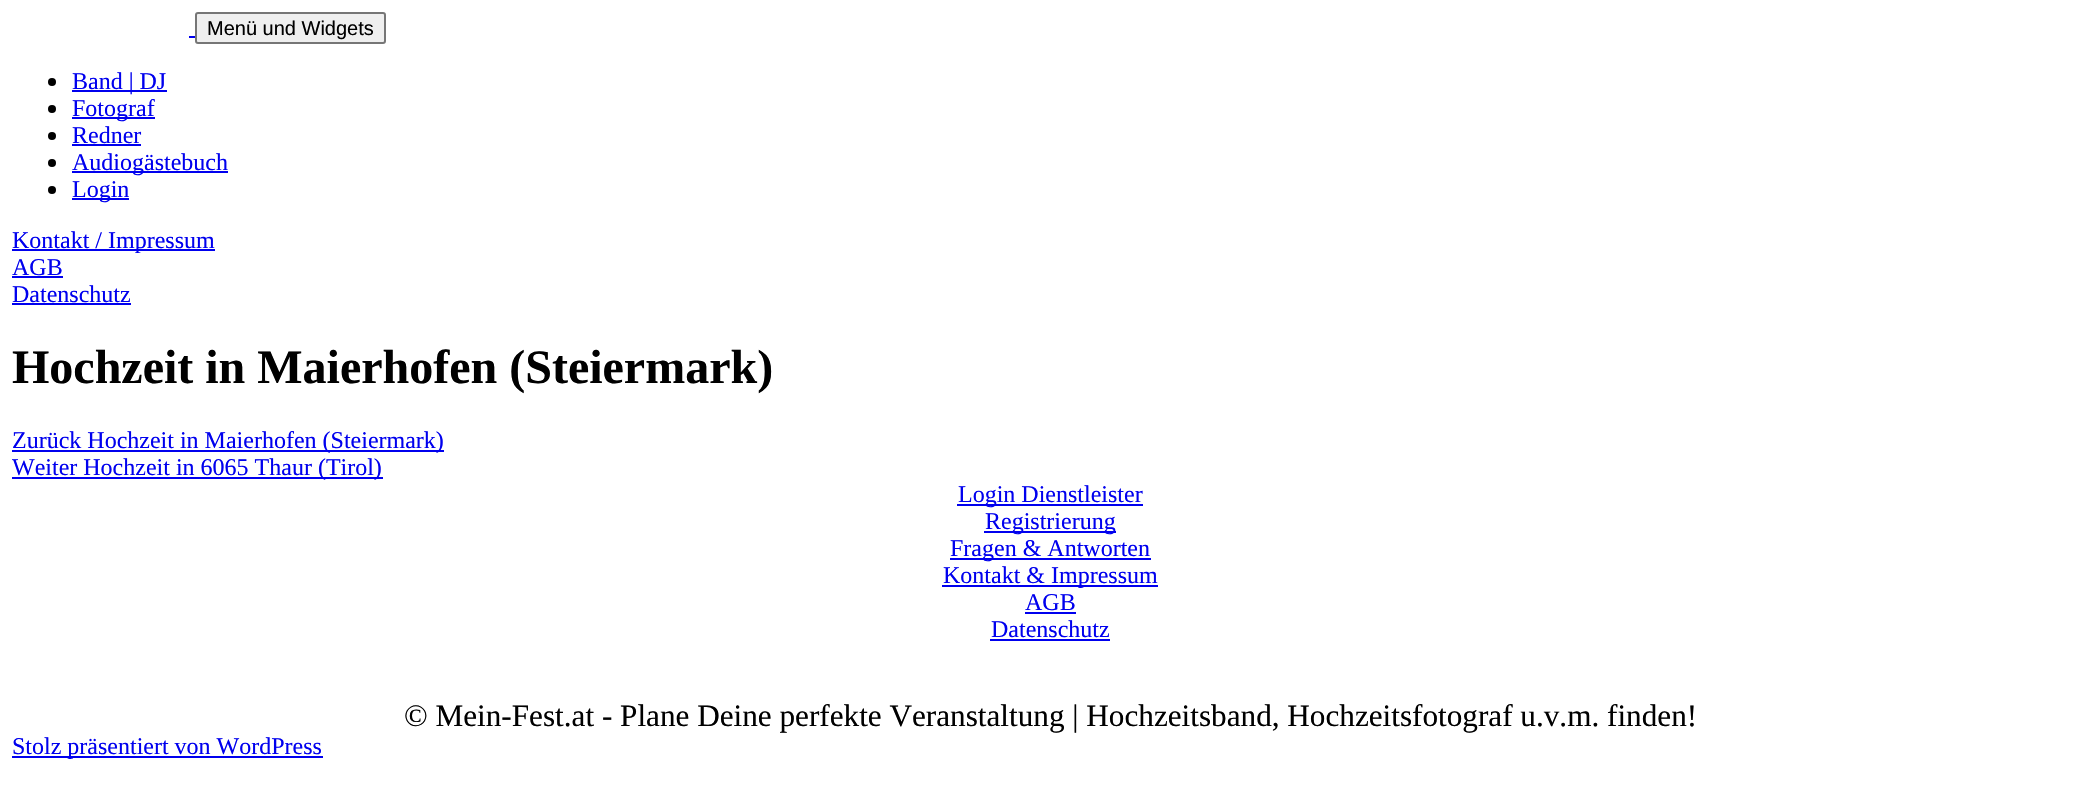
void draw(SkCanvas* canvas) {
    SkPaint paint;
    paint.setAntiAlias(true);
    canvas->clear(0xFFFFFFFF);
    paint.setColor(0xFF0000EE);
    canvas->drawRect(SkRect::MakeXYWH(189, 36, 6, 2), paint);
    paint.setColor(0xFFEFEFEF);
    canvas->drawRoundRect(SkRect::MakeXYWH(196, 13, 189, 30), 2, 2, paint);
    paint.setStyle(SkPaint::kStroke_Style);
    paint.setStrokeWidth(2);
    paint.setColor(0xFF767676);
    canvas->drawRoundRect(SkRect::MakeXYWH(196, 13, 189, 30), 2, 2, paint);
    SkFont font1(fontMgr->matchFamilyStyle("Liberation Sans", SkFontStyle::Normal()), 20);
    font1.setSubpixel(true);
    paint.setStyle(SkPaint::kFill_Style);
    paint.setColor(0xFF000000);
    canvas->drawString("Menü und Widgets", 207, 35, font1, paint);
    canvas->drawCircle(52, 82, 4, paint);
    paint.setColor(0xFF0000EE);
    canvas->drawRect(SkRect::MakeXYWH(72, 90, 95, 2), paint);
    SkFont font2(fontMgr->matchFamilyStyle("Liberation Serif", SkFontStyle::Normal()), 24);
    font2.setSubpixel(true);
    canvas->drawString("Band | DJ", 72, 89, font2, paint);
    paint.setColor(0xFF000000);
    canvas->drawCircle(52, 109, 4, paint);
    paint.setColor(0xFF0000EE);
    canvas->drawRect(SkRect::MakeXYWH(72, 117, 83, 2), paint);
    canvas->drawString("Fotograf", 72, 116, font2, paint);
    paint.setColor(0xFF000000);
    canvas->drawCircle(52, 136, 4, paint);
    paint.setColor(0xFF0000EE);
    canvas->drawString("Redner", 72, 143, font2, paint);
    canvas->drawRect(SkRect::MakeXYWH(72, 144, 69, 2), paint);
    paint.setColor(0xFF000000);
    canvas->drawCircle(52, 163, 4, paint);
    paint.setColor(0xFF0000EE);
    canvas->drawRect(SkRect::MakeXYWH(72, 171, 156, 2), paint);
    canvas->drawString("Audiogästebuch", 72, 170, font2, paint);
    paint.setColor(0xFF000000);
    canvas->drawCircle(52, 190, 4, paint);
    paint.setColor(0xFF0000EE);
    canvas->drawRect(SkRect::MakeXYWH(72, 198, 57, 2), paint);
    canvas->drawString("Login", 72, 197, font2, paint);
    canvas->drawRect(SkRect::MakeXYWH(12, 249, 203, 2), paint);
    canvas->drawString("Kontakt / Impressum", 12, 248, font2, paint);
    canvas->drawString("AGB", 12, 275, font2, paint);
    canvas->drawRect(SkRect::MakeXYWH(12, 276, 51, 2), paint);
    canvas->drawString("Datenschutz", 12, 302, font2, paint);
    canvas->drawRect(SkRect::MakeXYWH(12, 303, 119, 2), paint);
    SkFont font3(fontMgr->matchFamilyStyle("Liberation Serif", SkFontStyle::Bold()), 48);
    font3.setSubpixel(true);
    paint.setColor(0xFF000000);
    canvas->drawString("Hochzeit in Maierhofen (Steiermark)", 12, 383, font3, paint);
    paint.setColor(0xFF0000EE);
    canvas->drawRect(SkRect::MakeXYWH(12, 450, 432, 2), paint);
    canvas->drawString("Zurück Hochzeit in Maierhofen (Steiermark)", 12, 448, font2, paint);
    canvas->drawRect(SkRect::MakeXYWH(12, 477, 371, 2), paint);
    canvas->drawString("Weiter Hochzeit in 6065 Thaur (Tirol)", 12, 475, font2, paint);
    canvas->drawRect(SkRect::MakeXYWH(957, 504, 186, 2), paint);
    canvas->drawString("Login Dienstleister", 958, 502, font2, paint);
    canvas->drawRect(SkRect::MakeXYWH(984, 531, 132, 2), paint);
    canvas->drawString("Registrierung", 985, 529, font2, paint);
    canvas->drawRect(SkRect::MakeXYWH(950, 558, 201, 2), paint);
    canvas->drawString("Fragen & Antworten", 950, 556, font2, paint);
    canvas->drawRect(SkRect::MakeXYWH(942, 585, 216, 2), paint);
    canvas->drawString("Kontakt & Impressum", 943, 583, font2, paint);
    canvas->drawString("AGB", 1025, 610, font2, paint);
    canvas->drawRect(SkRect::MakeXYWH(1025, 612, 51, 2), paint);
    canvas->drawString("Datenschutz", 991, 637, font2, paint);
    canvas->drawRect(SkRect::MakeXYWH(990, 639, 120, 2), paint);
    SkFont font4(fontMgr->matchFamilyStyle("Liberation Serif", SkFontStyle::Normal()), 31.2f);
    font4.setSubpixel(true);
    paint.setColor(0xFF000000);
    canvas->drawString("© Mein-Fest.at - Plane Deine perfekte Veranstaltung | Hochzeitsband, Hochzeitsfotograf u.v.m. finden!", 404, 726, font4, paint);
    paint.setColor(0xFF0000EE);
    canvas->drawRect(SkRect::MakeXYWH(12, 756, 311, 2), paint);
    canvas->drawString("Stolz präsentiert von WordPress", 12, 754, font2, paint);
}
